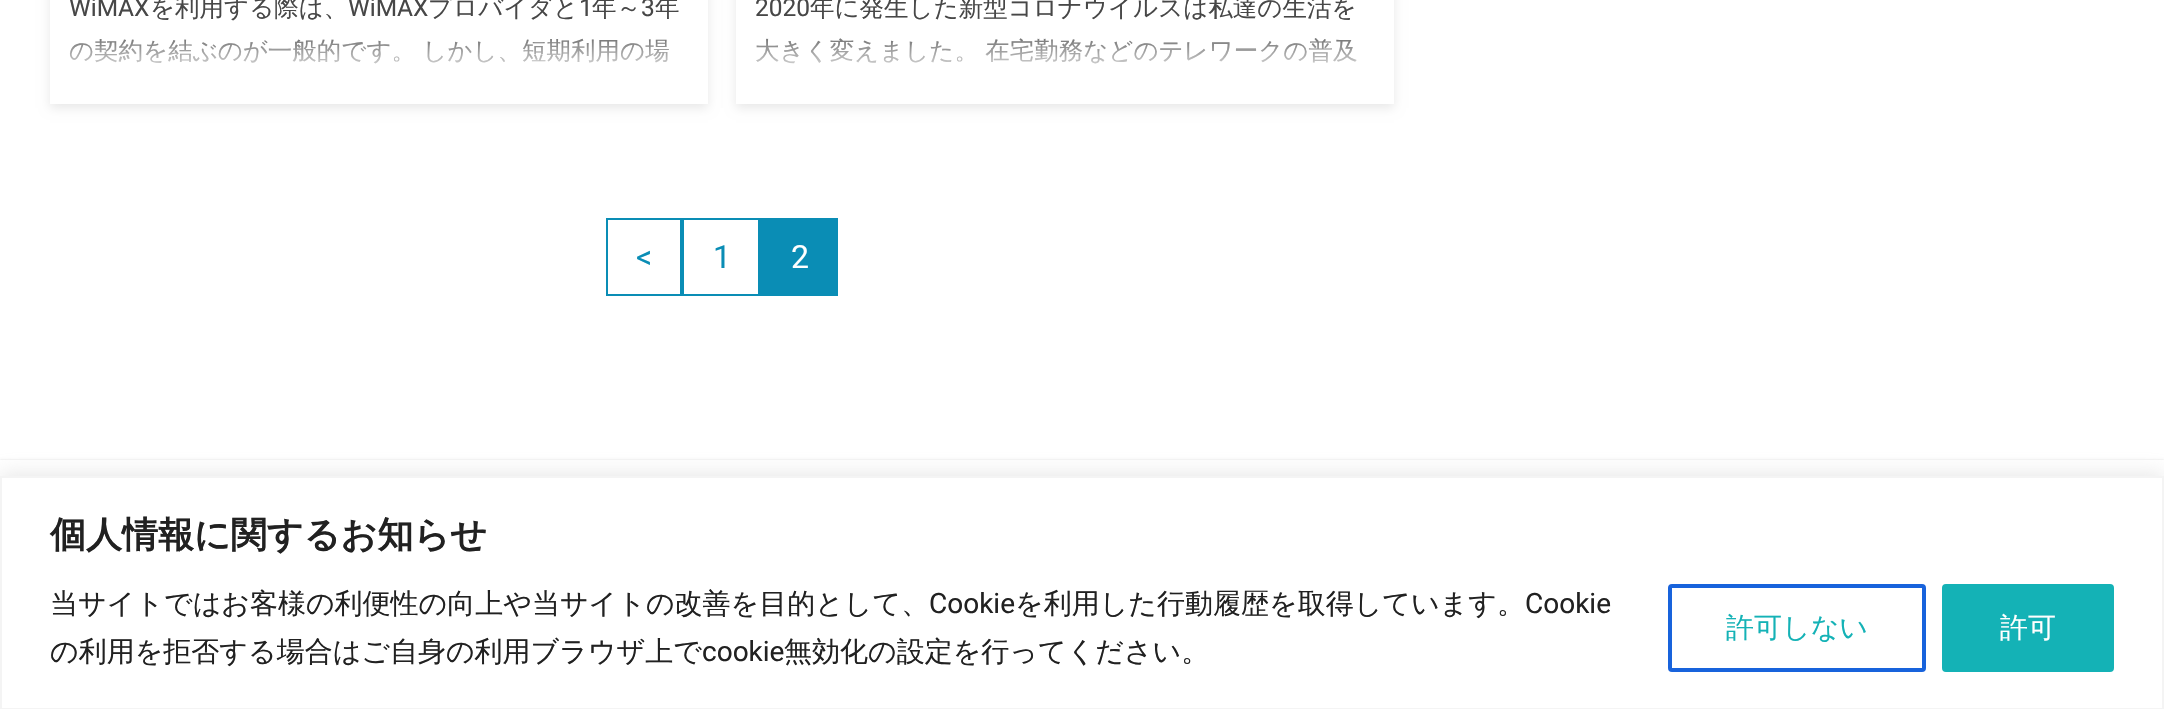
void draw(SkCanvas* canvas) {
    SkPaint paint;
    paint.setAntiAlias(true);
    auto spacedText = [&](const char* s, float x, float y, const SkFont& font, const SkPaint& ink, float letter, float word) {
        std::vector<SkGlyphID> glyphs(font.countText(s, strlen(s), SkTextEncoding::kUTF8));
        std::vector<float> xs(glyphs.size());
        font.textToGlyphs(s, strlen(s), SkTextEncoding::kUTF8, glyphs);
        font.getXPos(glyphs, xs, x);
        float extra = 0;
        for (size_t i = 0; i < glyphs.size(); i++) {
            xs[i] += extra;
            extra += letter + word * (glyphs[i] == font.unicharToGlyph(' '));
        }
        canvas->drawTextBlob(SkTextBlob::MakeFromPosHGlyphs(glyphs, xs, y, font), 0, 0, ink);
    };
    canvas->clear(0xFFFFFFFF);
    canvas->save();
    canvas->clipPath(SkPathBuilder(SkPathFillType::kEvenOdd).moveTo(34, 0).lineTo(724, 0).lineTo(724, 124).lineTo(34, 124).close().moveTo(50, -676).lineTo(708, -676).lineTo(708, 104).lineTo(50, 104).close().detach(), true);
    paint.setColor(0x17000000);
    paint.setMaskFilter(SkMaskFilter::MakeBlur(kNormal_SkBlurStyle, 5));
    canvas->drawRect(SkRect::MakeXYWH(50, -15, 658, 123), paint);
    paint.setMaskFilter(nullptr);
    canvas->restore();
    SkFont font1(fontMgr->matchFamilyStyle("Roboto", SkFontStyle::Normal()), 24.5f);
    font1.setSubpixel(true);
    paint.setColor(0xFF474747);
    canvas->drawString("WiMAX", 69, 16, font1, paint);
    SkFont font2(fontMgr->matchFamilyStyle("WenQuanYi Zen Hei", SkFontStyle(500, SkFontStyle::kNormal_Width, SkFontStyle::kUpright_Slant)), 24.5f);
    font2.setSubpixel(true);
    canvas->drawString("を利用する際は、", 150, 16, font2, paint);
    canvas->drawString("WiMAX", 348, 16, font1, paint);
    canvas->drawString("プロバイダと", 428, 16, font2, paint);
    canvas->drawString("1", 579, 16, font1, paint);
    canvas->drawString("年～", 592, 16, font2, paint);
    canvas->drawString("3", 641, 16, font1, paint);
    canvas->drawString("年", 655, 16, font2, paint);
    spacedText("の契約を結ぶのが一般的です。 しかし、短期利用の場", 69, 59, font2, paint, 0, -1);
    {
        const SkColor colors[] = {0x00FFFFFF, 0xFFFFFFFF, 0xFFFFFFFF};
        const float stops[] = {0, 0.7f, 1};
        const SkPoint ends[] = {{399, 24}, {399, 104}};
        paint.setShader(SkGradientShader::MakeLinear(ends, colors, stops, 3, SkTileMode::kClamp));
        paint.setAlpha(255);
    }
    canvas->drawRect(SkRect::MakeXYWH(70, 38, 599, 26), paint);
    canvas->save();
    canvas->clipPath(SkPathBuilder(SkPathFillType::kEvenOdd).moveTo(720, 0).lineTo(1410, 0).lineTo(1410, 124).lineTo(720, 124).close().moveTo(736, -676).lineTo(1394, -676).lineTo(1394, 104).lineTo(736, 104).close().detach(), true);
    paint.setShader(nullptr);
    paint.setColor(0x17000000);
    paint.setMaskFilter(SkMaskFilter::MakeBlur(kNormal_SkBlurStyle, 5));
    canvas->drawRect(SkRect::MakeXYWH(736, -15, 658, 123), paint);
    paint.setMaskFilter(nullptr);
    canvas->restore();
    paint.setColor(0xFF474747);
    canvas->drawString("2020", 755, 16, font1, paint);
    canvas->drawString("年に発生した新型コロナウイルスは私達の生活を", 810, 16, font2, paint);
    spacedText("大きく変えました。 在宅勤務などのテレワークの普及", 755, 59, font2, paint, 0, -1);
    {
        const SkColor colors[] = {0x00FFFFFF, 0xFFFFFFFF, 0xFFFFFFFF};
        const float stops[] = {0, 0.7f, 1};
        const SkPoint ends[] = {{1085, 24}, {1085, 104}};
        paint.setShader(SkGradientShader::MakeLinear(ends, colors, stops, 3, SkTileMode::kClamp));
        paint.setAlpha(255);
    }
    canvas->drawRect(SkRect::MakeXYWH(756, 38, 600, 26), paint);
    paint.setStyle(SkPaint::kStroke_Style);
    paint.setStrokeWidth(2);
    paint.setShader(nullptr);
    paint.setColor(0xFF0A8DB5);
    canvas->drawRect(SkRect::MakeXYWH(607, 219, 74, 76), paint);
    SkFont font3(fontMgr->matchFamilyStyle("Roboto", SkFontStyle::Normal()), 32);
    font3.setSubpixel(true);
    paint.setStyle(SkPaint::kFill_Style);
    canvas->drawString("<", 636, 268, font3, paint);
    paint.setStyle(SkPaint::kStroke_Style);
    canvas->drawRect(SkRect::MakeXYWH(683, 219, 76, 76), paint);
    paint.setStyle(SkPaint::kFill_Style);
    canvas->drawString("1", 713, 268, font3, paint);
    canvas->drawRect(SkRect::MakeXYWH(760, 218, 78, 78), paint);
    paint.setColor(0xFFFFFFFF);
    canvas->drawString("2", 791, 268, font3, paint);
    paint.setColor(0xFFDDDDDD);
    paint.setMaskFilter(SkMaskFilter::MakeBlur(kNormal_SkBlurStyle, 1));
    canvas->drawRect(SkRect::MakeXYWH(0, 460, 2164, 80), paint);
    paint.setMaskFilter(nullptr);
    paint.setColor(0xFFFFFFFF);
    canvas->drawRect(SkRect::MakeXYWH(0, 460, 2164, 16), paint);
    paint.setColor(0x4DACABAB);
    paint.setMaskFilter(SkMaskFilter::MakeBlur(kNormal_SkBlurStyle, 10));
    canvas->drawRect(SkRect::MakeXYWH(0, 474, 2164, 234), paint);
    paint.setMaskFilter(nullptr);
    paint.setColor(0xFFFFFFFF);
    canvas->drawRect(SkRect::MakeXYWH(1, 477, 2162, 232), paint);
    paint.setStyle(SkPaint::kStroke_Style);
    paint.setColor(0xFFF4F4F4);
    canvas->drawRect(SkRect::MakeXYWH(1, 477, 2162, 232), paint);
    SkFont font4(fontMgr->matchFamilyStyle("WenQuanYi Zen Hei", SkFontStyle::Bold()), 36);
    font4.setSubpixel(true);
    paint.setStyle(SkPaint::kFill_Style);
    paint.setColor(0xFF212121);
    canvas->drawString("個人情報に関するお知らせ", 50, 547, font4, paint);
    SkFont font5(fontMgr->matchFamilyStyle("WenQuanYi Zen Hei", SkFontStyle(500, SkFontStyle::kNormal_Width, SkFontStyle::kUpright_Slant)), 28);
    font5.setSubpixel(true);
    canvas->drawString("当サイトではお客様の利便性の向上や当サイトの改善を目的として、", 50, 613, font5, paint);
    SkFont font6(fontMgr->matchFamilyStyle("Roboto", SkFontStyle::Normal()), 28);
    font6.setSubpixel(true);
    canvas->drawString("Cookie", 929, 613, font6, paint);
    canvas->drawString("を利用した行動履歴を取得しています。", 1015, 613, font5, paint);
    canvas->drawString("Cookie", 1525, 613, font6, paint);
    canvas->drawString("の利用を拒否する場合はご自身の利用ブラウザ上で", 50, 661, font5, paint);
    canvas->drawString("cookie", 702, 661, font6, paint);
    canvas->drawString("無効化の設定を行ってください。", 784, 661, font5, paint);
    paint.setStyle(SkPaint::kStroke_Style);
    paint.setStrokeWidth(4);
    paint.setColor(0xFF1863DC);
    canvas->drawRoundRect(SkRect::MakeXYWH(1670, 586, 254, 84), 2, 2, paint);
    paint.setStyle(SkPaint::kFill_Style);
    paint.setColor(0xFF14B2B6);
    canvas->drawString("許可しない", 1726, 637, font5, paint);
    canvas->drawRoundRect(SkRect::MakeXYWH(1944, 586, 168, 84), 2, 2, paint);
    paint.setStyle(SkPaint::kStroke_Style);
    canvas->drawRoundRect(SkRect::MakeXYWH(1944, 586, 168, 84), 2, 2, paint);
    paint.setStyle(SkPaint::kFill_Style);
    paint.setColor(0xFFFFFFFF);
    canvas->drawString("許可", 2000, 637, font5, paint);
}
